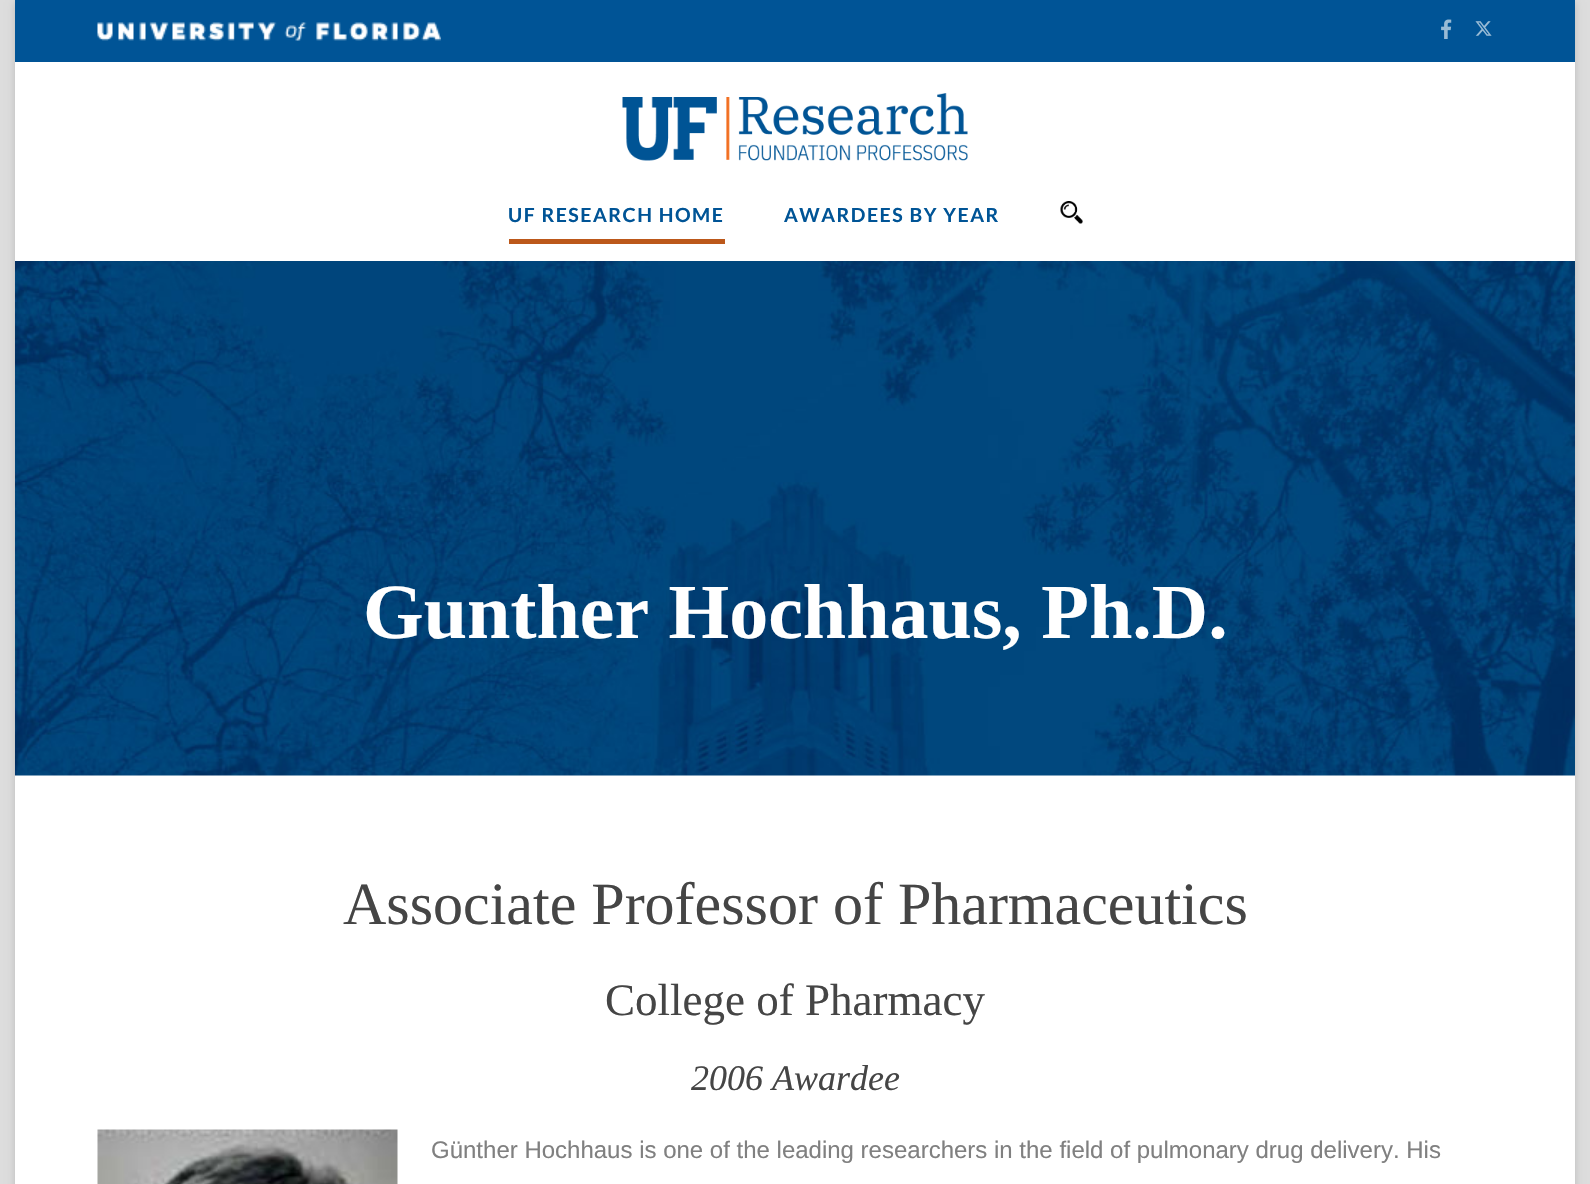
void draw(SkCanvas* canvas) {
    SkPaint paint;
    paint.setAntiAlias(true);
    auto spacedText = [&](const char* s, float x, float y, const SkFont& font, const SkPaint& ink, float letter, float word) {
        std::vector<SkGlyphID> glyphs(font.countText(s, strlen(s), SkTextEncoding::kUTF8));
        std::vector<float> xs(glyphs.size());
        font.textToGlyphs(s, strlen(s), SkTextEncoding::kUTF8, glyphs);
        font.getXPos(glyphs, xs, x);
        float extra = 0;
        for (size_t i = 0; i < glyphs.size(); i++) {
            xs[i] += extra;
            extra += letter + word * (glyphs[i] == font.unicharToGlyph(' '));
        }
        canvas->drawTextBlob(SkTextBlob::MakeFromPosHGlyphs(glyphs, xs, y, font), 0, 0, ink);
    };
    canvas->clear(0xFFDDDDDD);
    paint.setColor(0x26000000);
    paint.setMaskFilter(SkMaskFilter::MakeBlur(kNormal_SkBlurStyle, 4));
    canvas->drawRect(SkRect::MakeXYWH(15, 2, 1560, 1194), paint);
    paint.setMaskFilter(nullptr);
    paint.setColor(0xFFFFFFFF);
    canvas->drawRect(SkRect::MakeXYWH(15, 62, 1560, 1122), paint);
    paint.setColor(0xFF005496);
    canvas->drawRect(SkRect::MakeXYWH(15, 0, 1560, 62), paint);
    canvas->drawImageRect(SkImages::DeferredFromEncodedData(SkData::MakeFromFileName("img1.png")), SkRect::MakeXYWH(97, 22, 344, 19), SkSamplingOptions());
    canvas->drawImageRect(SkImages::DeferredFromEncodedData(SkData::MakeFromFileName("img2.png")), SkRect::MakeXYWH(1441, 19, 11, 20), SkSamplingOptions());
    canvas->drawImageRect(SkImages::DeferredFromEncodedData(SkData::MakeFromFileName("img3.png")), SkRect::MakeXYWH(1475, 21, 17, 15), SkSamplingOptions());
    canvas->drawImageRect(SkImages::DeferredFromEncodedData(SkData::MakeFromFileName("img4.png")), SkRect::MakeXYWH(622, 93, 346, 68), SkSamplingOptions());
    SkFont font1(fontMgr->matchFamilyStyle("Lato", SkFontStyle::Bold()), 19.5f);
    font1.setSubpixel(true);
    spacedText("UF RESEARCH HOME", 508, 222, font1, paint, 1.5f, 0);
    spacedText("AWARDEES BY YEAR", 784, 222, font1, paint, 1.5f, 0);
    canvas->drawImageRect(SkImages::DeferredFromEncodedData(SkData::MakeFromFileName("img5.png")), SkRect::MakeXYWH(1060, 201, 23, 23), SkSamplingOptions());
    paint.setColor(0xFFBC581A);
    canvas->drawRect(SkRect::MakeXYWH(509, 239, 216, 5), paint);
    canvas->drawImageRect(SkImages::DeferredFromEncodedData(SkData::MakeFromFileName("img6.png")), SkRect::MakeXYWH(15, 261, 1560, 515), SkSamplingOptions());
    SkFont font2(fontMgr->matchFamilyStyle("Liberation Serif", SkFontStyle::Bold()), 78);
    font2.setSubpixel(true);
    paint.setColor(0xFFFFFFFF);
    canvas->drawString("Gunther Hochhaus, Ph.D.", 363, 638, font2, paint);
    SkFont font3(fontMgr->matchFamilyStyle("Liberation Serif", SkFontStyle::Normal()), 60);
    font3.setSubpixel(true);
    paint.setColor(0xFF454545);
    canvas->drawString("Associate Professor of Pharmaceutics", 343, 924, font3, paint);
    SkFont font4(fontMgr->matchFamilyStyle("Liberation Serif", SkFontStyle::Normal()), 45);
    font4.setSubpixel(true);
    canvas->drawString("College of Pharmacy", 605, 1015, font4, paint);
    SkFont font5(fontMgr->matchFamilyStyle("Liberation Serif", SkFontStyle::Italic()), 36);
    font5.setSubpixel(true);
    canvas->drawString("2006 Awardee", 691, 1090, font5, paint);
    canvas->drawImageRect(SkImages::DeferredFromEncodedData(SkData::MakeFromFileName("img7.png")), SkRect::MakeXYWH(97, 1129, 301, 55), SkSamplingOptions());
    SkFont font6(fontMgr->matchFamilyStyle("Liberation Sans", SkFontStyle::Normal()), 24);
    font6.setSubpixel(true);
    paint.setColor(0xFF808080);
    canvas->drawString("Günther Hochhaus is one of the leading researchers in the field of pulmonary drug delivery. His", 431, 1158, font6, paint);
}
